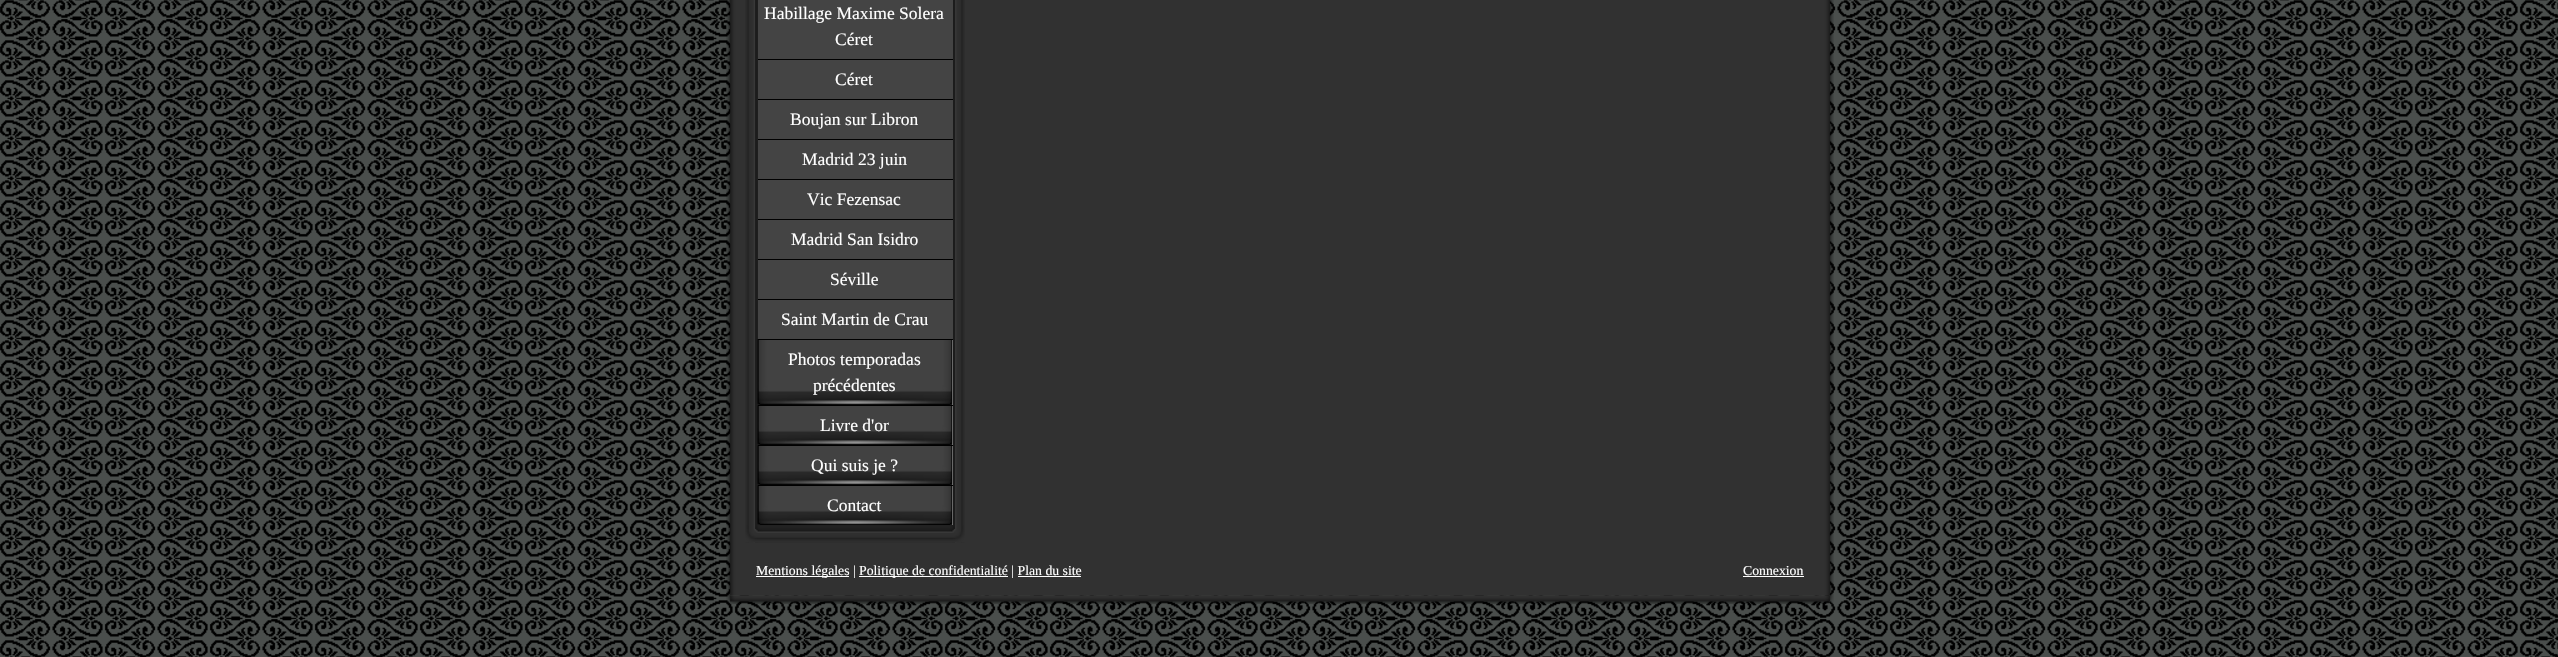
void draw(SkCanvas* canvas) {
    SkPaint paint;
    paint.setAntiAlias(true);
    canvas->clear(0xFF4A4E4C);
    canvas->drawImageRect(SkImages::DeferredFromEncodedData(SkData::MakeFromFileName("img1.png")), SkRect::MakeXYWH(0, 0, 2558, 657), SkSamplingOptions());
    canvas->drawImageRect(SkImages::DeferredFromEncodedData(SkData::MakeFromFileName("img2.png")), SkRect::MakeXYWH(726, 0, 1108, 596), SkSamplingOptions());
    canvas->drawImageRect(SkImages::DeferredFromEncodedData(SkData::MakeFromFileName("img3.png")), SkRect::MakeXYWH(745, 0, 220, 543), SkSamplingOptions());
    paint.setColor(0xFF444444);
    canvas->drawRect(SkRect::MakeXYWH(758, 0, 195, 59), paint);
    SkFont font1(fontMgr->matchFamilyStyle("Liberation Serif", SkFontStyle::Normal()), 17.5f);
    font1.setSubpixel(true);
    paint.setColor(0xFFFFFFFF);
    canvas->drawString("Habillage Maxime Solera", 764, 19, font1, paint);
    canvas->drawString("Céret", 835, 45, font1, paint);
    paint.setColor(0xFF444444);
    canvas->drawRect(SkRect::MakeXYWH(758, 60, 195, 39), paint);
    paint.setColor(0xFF000000);
    canvas->drawRect(SkRect::MakeXYWH(758, 59, 195, 1), paint);
    paint.setColor(0xFFFFFFFF);
    canvas->drawString("Céret", 835, 85, font1, paint);
    paint.setColor(0xFF444444);
    canvas->drawRect(SkRect::MakeXYWH(758, 100, 195, 39), paint);
    paint.setColor(0xFF000000);
    canvas->drawRect(SkRect::MakeXYWH(758, 99, 195, 1), paint);
    paint.setColor(0xFFFFFFFF);
    canvas->drawString("Boujan sur Libron", 790, 125, font1, paint);
    paint.setColor(0xFF444444);
    canvas->drawRect(SkRect::MakeXYWH(758, 140, 195, 39), paint);
    paint.setColor(0xFF000000);
    canvas->drawRect(SkRect::MakeXYWH(758, 139, 195, 1), paint);
    paint.setColor(0xFFFFFFFF);
    canvas->drawString("Madrid 23 juin", 802, 165, font1, paint);
    paint.setColor(0xFF444444);
    canvas->drawRect(SkRect::MakeXYWH(758, 180, 195, 39), paint);
    paint.setColor(0xFF000000);
    canvas->drawRect(SkRect::MakeXYWH(758, 179, 195, 1), paint);
    paint.setColor(0xFFFFFFFF);
    canvas->drawString("Vic Fezensac", 807, 205, font1, paint);
    paint.setColor(0xFF444444);
    canvas->drawRect(SkRect::MakeXYWH(758, 220, 195, 39), paint);
    paint.setColor(0xFF000000);
    canvas->drawRect(SkRect::MakeXYWH(758, 219, 195, 1), paint);
    paint.setColor(0xFFFFFFFF);
    canvas->drawString("Madrid San Isidro", 791, 245, font1, paint);
    paint.setColor(0xFF444444);
    canvas->drawRect(SkRect::MakeXYWH(758, 260, 195, 39), paint);
    paint.setColor(0xFF000000);
    canvas->drawRect(SkRect::MakeXYWH(758, 259, 195, 1), paint);
    paint.setColor(0xFFFFFFFF);
    canvas->drawString("Séville", 830, 285, font1, paint);
    paint.setColor(0xFF444444);
    canvas->drawRect(SkRect::MakeXYWH(758, 300, 195, 39), paint);
    paint.setColor(0xFF000000);
    canvas->drawRect(SkRect::MakeXYWH(758, 299, 195, 1), paint);
    paint.setColor(0xFFFFFFFF);
    canvas->drawString("Saint Martin de Crau", 781, 325, font1, paint);
    paint.setColor(0xFFCCCCCC);
    canvas->drawRect(SkRect::MakeXYWH(952, 340, 1, 65), paint);
    canvas->drawImageRect(SkImages::DeferredFromEncodedData(SkData::MakeFromFileName("img4.png")), SkRect::MakeXYWH(757, 339, 196, 67), SkSamplingOptions());
    paint.setColor(0xFF000000);
    canvas->drawRect(SkRect::MakeXYWH(758, 339, 195, 1), paint);
    paint.setColor(0xFFFFFFFF);
    canvas->drawString("Photos temporadas", 788, 365, font1, paint);
    canvas->drawString("précédentes", 813, 391, font1, paint);
    paint.setColor(0xFFCCCCCC);
    canvas->drawRect(SkRect::MakeXYWH(952, 406, 1, 39), paint);
    canvas->drawImageRect(SkImages::DeferredFromEncodedData(SkData::MakeFromFileName("img5.png")), SkRect::MakeXYWH(757, 405, 196, 41), SkSamplingOptions());
    paint.setColor(0xFF000000);
    canvas->drawRect(SkRect::MakeXYWH(758, 405, 195, 1), paint);
    paint.setColor(0xFFFFFFFF);
    canvas->drawString("Livre d'or", 820, 431, font1, paint);
    paint.setColor(0xFFCCCCCC);
    canvas->drawRect(SkRect::MakeXYWH(952, 446, 1, 39), paint);
    canvas->drawImageRect(SkImages::DeferredFromEncodedData(SkData::MakeFromFileName("img6.png")), SkRect::MakeXYWH(757, 445, 196, 41), SkSamplingOptions());
    paint.setColor(0xFF000000);
    canvas->drawRect(SkRect::MakeXYWH(758, 445, 195, 1), paint);
    paint.setColor(0xFFFFFFFF);
    canvas->drawString("Qui suis je ?", 811, 471, font1, paint);
    paint.setColor(0xFFCCCCCC);
    canvas->drawRect(SkRect::MakeXYWH(952, 486, 1, 39), paint);
    canvas->drawImageRect(SkImages::DeferredFromEncodedData(SkData::MakeFromFileName("img6.png")), SkRect::MakeXYWH(757, 485, 196, 41), SkSamplingOptions());
    paint.setColor(0xFF000000);
    canvas->drawRect(SkRect::MakeXYWH(758, 485, 195, 1), paint);
    paint.setColor(0xFFFFFFFF);
    canvas->drawString("Contact", 827, 511, font1, paint);
    canvas->drawImageRect(SkImages::DeferredFromEncodedData(SkData::MakeFromFileName("img7.png")), SkRect::MakeXYWH(745, 525, 220, 18), SkSamplingOptions());
    canvas->drawRect(SkRect::MakeXYWH(756, 576, 93, 1), paint);
    SkFont font2(fontMgr->matchFamilyStyle("Liberation Serif", SkFontStyle::Normal()), 13.75f);
    font2.setSubpixel(true);
    canvas->drawString("Mentions légales |", 756, 575, font2, paint);
    canvas->drawRect(SkRect::MakeXYWH(859, 576, 149, 1), paint);
    canvas->drawString("Politique de confidentialité | Plan du site", 859, 575, font2, paint);
    canvas->drawRect(SkRect::MakeXYWH(1018, 576, 63, 1), paint);
    canvas->drawString("Connexion", 1743, 575, font2, paint);
    canvas->drawRect(SkRect::MakeXYWH(1743, 576, 61, 1), paint);
    canvas->drawImageRect(SkImages::DeferredFromEncodedData(SkData::MakeFromFileName("img8.png")), SkRect::MakeXYWH(726, 595, 1108, 9), SkSamplingOptions());
}
